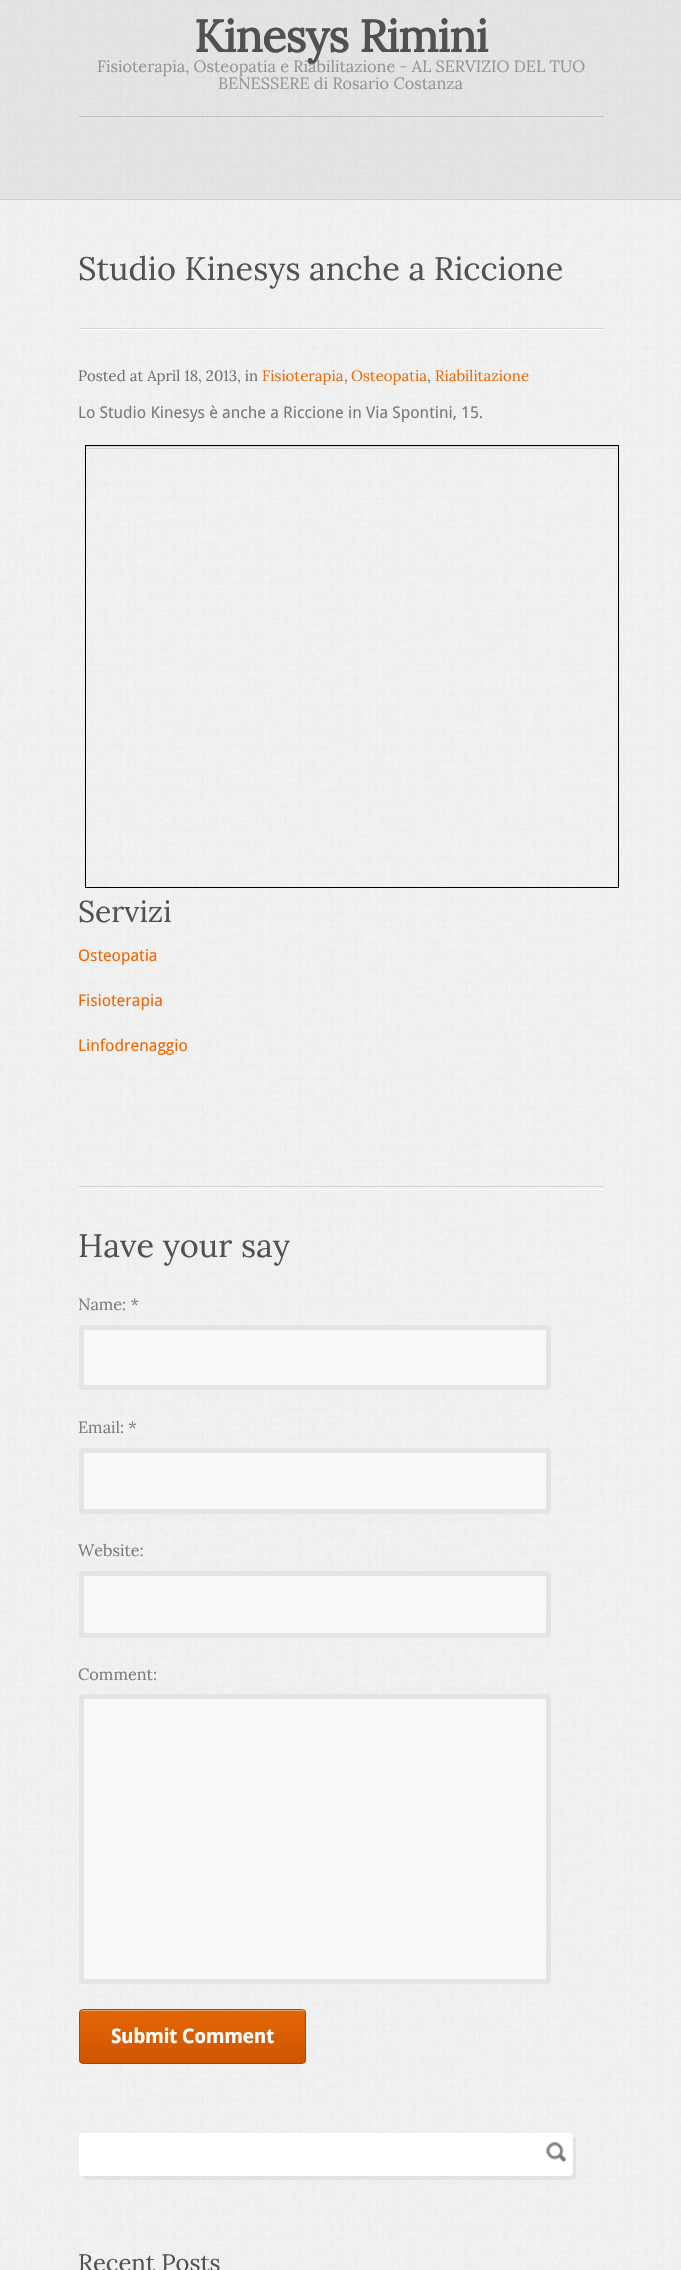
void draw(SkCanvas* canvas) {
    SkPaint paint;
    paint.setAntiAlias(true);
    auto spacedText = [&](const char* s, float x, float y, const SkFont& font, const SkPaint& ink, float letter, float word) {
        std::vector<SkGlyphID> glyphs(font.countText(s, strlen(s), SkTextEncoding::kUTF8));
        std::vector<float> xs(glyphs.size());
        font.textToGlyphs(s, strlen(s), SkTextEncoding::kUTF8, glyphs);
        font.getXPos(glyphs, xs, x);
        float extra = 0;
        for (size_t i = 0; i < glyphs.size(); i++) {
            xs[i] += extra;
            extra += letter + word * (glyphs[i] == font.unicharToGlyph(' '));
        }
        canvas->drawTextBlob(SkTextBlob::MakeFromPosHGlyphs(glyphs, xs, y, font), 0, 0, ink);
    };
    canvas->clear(0xFFFFFFFF);
    canvas->drawImageRect(SkImages::DeferredFromEncodedData(SkData::MakeFromFileName("img1.png")), SkRect::MakeXYWH(0, 0, 681, 2270), SkSamplingOptions());
    paint.setColor(0x0D000000);
    canvas->drawRect(SkRect::MakeXYWH(0, 0, 681, 199), paint);
    paint.setColor(0x26000000);
    canvas->drawRect(SkRect::MakeXYWH(79, 116, 525, 1), paint);
    SkFont font1(fontMgr->matchFamilyStyle("Lora", SkFontStyle::Bold()), 45);
    font1.setSubpixel(true);
    paint.setColor(0xFF515151);
    spacedText("Kinesys Rimini", 194, 52, font1, paint, -0.9f, 0);
    SkFont font2(fontMgr->matchFamilyStyle("Lora", SkFontStyle::Normal()), 16.25f);
    font2.setSubpixel(true);
    paint.setColor(0xFF949494);
    canvas->drawString("Fisioterapia, Osteopatia e Riabilitazione - AL SERVIZIO DEL TUO", 97, 72, font2, paint);
    canvas->drawString("BENESSERE di Rosario Costanza", 218, 89, font2, paint);
    paint.setColor(0xFFCCCFCD);
    canvas->drawRect(SkRect::MakeXYWH(0, 199, 681, 1), paint);
    paint.setColor(0xFFFFFFFF);
    canvas->drawRect(SkRect::MakeXYWH(79, 329, 525, 1), paint);
    SkFont font3(fontMgr->matchFamilyStyle("Lora", SkFontStyle::Normal()), 32.5f);
    font3.setSubpixel(true);
    paint.setColor(0xFF515151);
    canvas->drawString("Studio Kinesys anche a Riccione", 78, 280, font3, paint);
    paint.setColor(0xFFD5D5D5);
    canvas->drawRect(SkRect::MakeXYWH(79, 328, 525, 1), paint);
    SkFont font4(fontMgr->matchFamilyStyle("Lora", SkFontStyle::Normal()), 15);
    font4.setSubpixel(true);
    paint.setColor(0xFF717171);
    canvas->drawString("Posted at April 18, 2013, in", 78, 381, font4, paint);
    paint.setColor(0xFFED6A08);
    canvas->drawString("Fisioterapia", 262, 381, font4, paint);
    paint.setColor(0xFF717171);
    canvas->drawString(",", 344, 381, font4, paint);
    paint.setColor(0xFFED6A08);
    canvas->drawString("Osteopatia", 351, 381, font4, paint);
    paint.setColor(0xFF717171);
    canvas->drawString(",", 427, 381, font4, paint);
    paint.setColor(0xFFED6A08);
    canvas->drawString("Riabilitazione", 435, 381, font4, paint);
    SkFont font5(fontMgr->matchFamilyStyle("Droid Sans", SkFontStyle::Normal()), 16.25f);
    font5.setSubpixel(true);
    paint.setColor(0xFF7B7B7B);
    canvas->drawString("Lo Studio Kinesys è anche a Riccione in Via Spontini, 15.", 78, 418, font5, paint);
    paint.setStyle(SkPaint::kStroke_Style);
    paint.setStrokeWidth(1);
    paint.setColor(0xFF000000);
    canvas->drawRect(SkRect::MakeXYWH(85.5f, 445.5f, 533, 442), paint);
    paint.setStyle(SkPaint::kFill_Style);
    paint.setColor(0xFFF0F0F0);
    canvas->drawRect(SkRect::MakeXYWH(86, 447, 517, 1), paint);
    paint.setColor(0xFFD3D3D3);
    canvas->drawRect(SkRect::MakeXYWH(86, 446, 532, 1), paint);
    canvas->drawRect(SkRect::MakeXYWH(86, 448, 532, 1), paint);
    SkFont font6(fontMgr->matchFamilyStyle("Lora", SkFontStyle::Normal()), 30);
    font6.setSubpixel(true);
    paint.setColor(0xFF515151);
    canvas->drawString("Servizi", 78, 922, font6, paint);
    paint.setColor(0xFFED6A08);
    canvas->drawString("Osteopatia", 78, 961, font5, paint);
    canvas->drawString("Fisioterapia", 78, 1006, font5, paint);
    canvas->drawString("Linfodrenaggio", 78, 1051, font5, paint);
    paint.setColor(0xFFD5D5D5);
    canvas->drawRect(SkRect::MakeXYWH(79, 1186, 525, 1), paint);
    paint.setColor(0xFFFFFFFF);
    canvas->drawRect(SkRect::MakeXYWH(79, 1189, 525, 1), paint);
    paint.setColor(0xFF515151);
    canvas->drawString("Have your say", 78, 1257, font3, paint);
    paint.setColor(0xFF7B7B7B);
    canvas->drawString("Name: *", 78, 1310, font2, paint);
    paint.setColor(0xFFF9F9F9);
    canvas->drawRoundRect(SkRect::MakeXYWH(81.5f, 1327.5f, 467, 60), 1.5f, 1.5f, paint);
    paint.setStyle(SkPaint::kStroke_Style);
    paint.setStrokeWidth(5);
    paint.setColor(0xFFE4E4E4);
    canvas->drawRoundRect(SkRect::MakeXYWH(81.5f, 1327.5f, 467, 60), 1.5f, 1.5f, paint);
    paint.setStyle(SkPaint::kFill_Style);
    paint.setColor(0xFF7B7B7B);
    canvas->drawString("Email: *", 78, 1433, font2, paint);
    paint.setColor(0xFFF9F9F9);
    canvas->drawRoundRect(SkRect::MakeXYWH(81.5f, 1450.5f, 467, 61), 1.5f, 1.5f, paint);
    paint.setStyle(SkPaint::kStroke_Style);
    paint.setColor(0xFFE4E4E4);
    canvas->drawRoundRect(SkRect::MakeXYWH(81.5f, 1450.5f, 467, 61), 1.5f, 1.5f, paint);
    paint.setStyle(SkPaint::kFill_Style);
    paint.setColor(0xFF7B7B7B);
    canvas->drawString("Website:", 78, 1556, font2, paint);
    paint.setColor(0xFFF9F9F9);
    canvas->drawRoundRect(SkRect::MakeXYWH(81.5f, 1573.5f, 467, 62), 1.5f, 1.5f, paint);
    paint.setStyle(SkPaint::kStroke_Style);
    paint.setColor(0xFFE4E4E4);
    canvas->drawRoundRect(SkRect::MakeXYWH(81.5f, 1573.5f, 467, 62), 1.5f, 1.5f, paint);
    paint.setStyle(SkPaint::kFill_Style);
    paint.setColor(0xFF7B7B7B);
    canvas->drawString("Comment:", 78, 1680, font2, paint);
    paint.setColor(0xFFF9F9F9);
    canvas->drawRoundRect(SkRect::MakeXYWH(81.5f, 1696.5f, 467, 285), 1.5f, 1.5f, paint);
    paint.setStyle(SkPaint::kStroke_Style);
    paint.setColor(0xFFE4E4E4);
    canvas->drawRoundRect(SkRect::MakeXYWH(81.5f, 1696.5f, 467, 285), 1.5f, 1.5f, paint);
    canvas->save();
    canvas->clipPath(SkPathBuilder().moveTo(83, 2009).lineTo(302, 2009).cubicTo(304, 2009, 306, 2011, 306, 2013).lineTo(306, 2060).cubicTo(306, 2062, 304, 2064, 302, 2064).lineTo(83, 2064).cubicTo(81, 2064, 79, 2062, 79, 2060).lineTo(79, 2013).cubicTo(79, 2011, 81, 2009, 83, 2009).close().detach(), true);
    paint.setStyle(SkPaint::kFill_Style);
    {
        const SkColor colors[] = {0xFFCE5601, 0xFFE46605};
        const float stops[] = {0, 1};
        const SkPoint ends[] = {{80, 2063}, {80, 2010}};
        paint.setShader(SkGradientShader::MakeLinear(ends, colors, stops, 2, SkTileMode::kClamp));
        paint.setAlpha(255);
    }
    canvas->drawRect(SkRect::MakeXYWH(79, 2010, 227, 53), paint);
    canvas->restore();
    paint.setShader(nullptr);
    paint.setColor(0xFFEFA369);
    canvas->drawPath(SkPathBuilder().moveTo(82, 2011).lineTo(302, 2011).cubicTo(304, 2011, 305, 2012, 305, 2014).cubicTo(305, 2012, 305, 2010, 302, 2010).lineTo(82, 2010).cubicTo(80, 2010, 80, 2012, 80, 2014).cubicTo(80, 2012, 81, 2011, 82, 2011).close().detach(), paint);
    paint.setStyle(SkPaint::kStroke_Style);
    paint.setStrokeWidth(1);
    paint.setColor(0xFFA74700);
    canvas->drawRoundRect(SkRect::MakeXYWH(79.5f, 2009.5f, 226, 54), 3.5f, 3.5f, paint);
    SkFont font7(fontMgr->matchFamilyStyle("Droid Sans", SkFontStyle::Bold()), 20);
    font7.setSubpixel(true);
    paint.setStyle(SkPaint::kFill_Style);
    paint.setColor(0xFFFFFFFF);
    spacedText("Submit Comment", 111, 2043, font7, paint, -0.4f, 0);
    paint.setColor(0x0D000000);
    canvas->drawPath(SkPathBuilder().moveTo(83, 2176).cubicTo(83, 2178, 85, 2180, 87, 2180).lineTo(572, 2180).cubicTo(574, 2180, 576, 2178, 576, 2176).lineTo(576, 2140).cubicTo(576, 2138, 574, 2136, 572, 2136).lineTo(572, 2172).cubicTo(572, 2175, 571, 2176, 569, 2176).close().detach(), paint);
    paint.setColor(0xFFFFFFFF);
    canvas->drawRoundRect(SkRect::MakeXYWH(79, 2133, 494, 43), 4, 4, paint);
    canvas->drawImageRect(SkImages::DeferredFromEncodedData(SkData::MakeFromFileName("img2.png")), SkRect::MakeXYWH(546, 2142, 21, 20), SkSamplingOptions());
    SkFont font8(fontMgr->matchFamilyStyle("Lora", SkFontStyle::Normal()), 23.75f);
    font8.setSubpixel(true);
    paint.setColor(0xFF515151);
    canvas->drawString("Recent Posts", 78, 2271, font8, paint);
}
